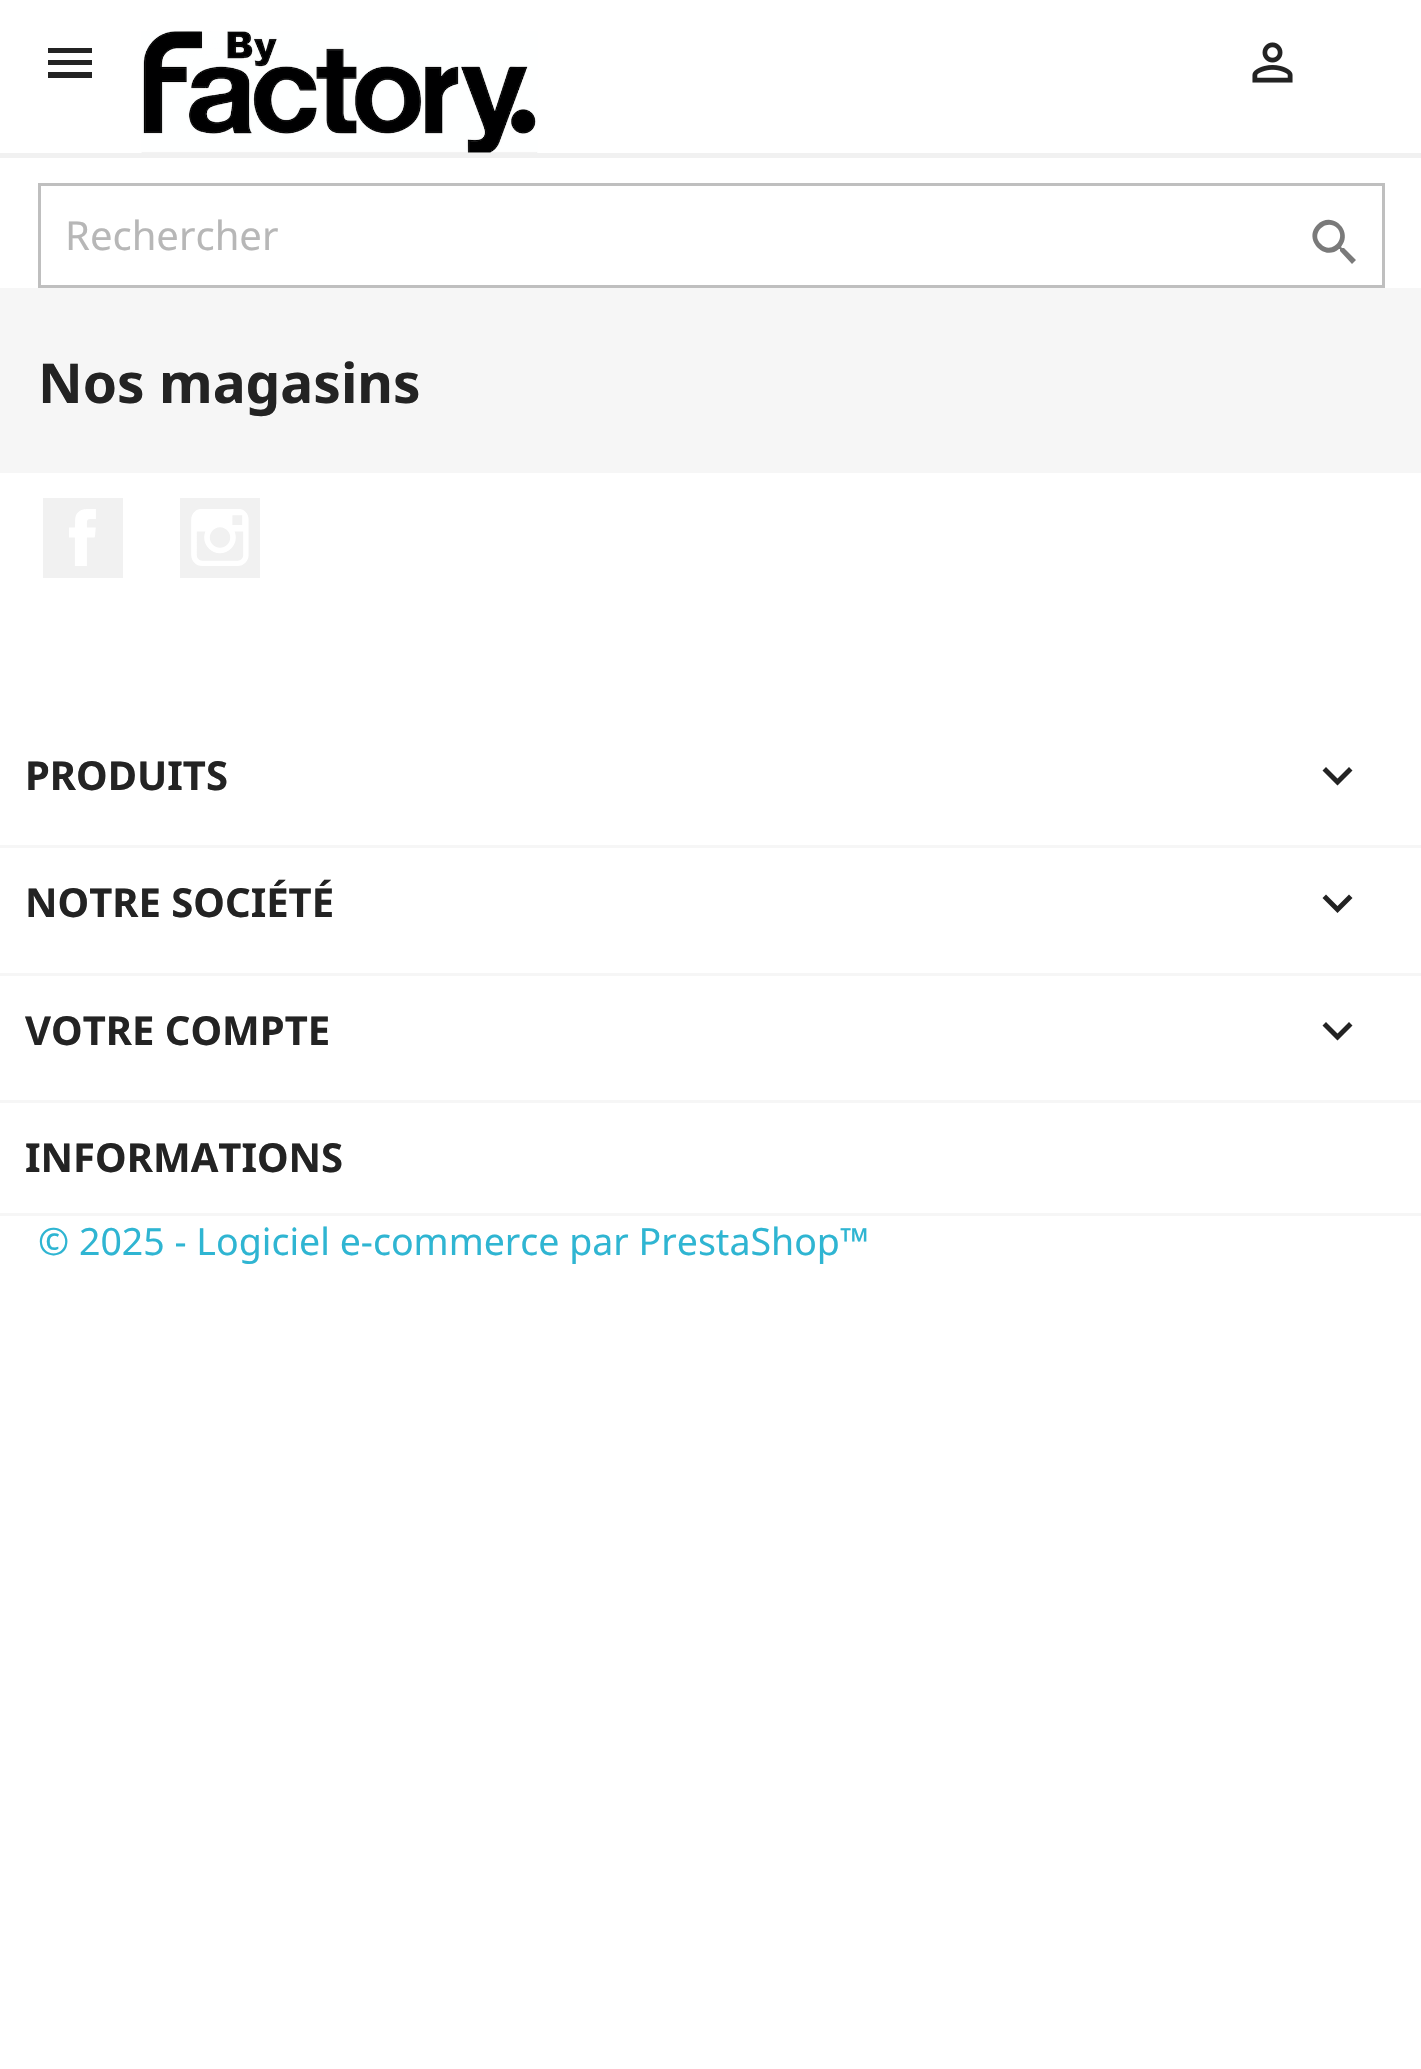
void draw(SkCanvas* canvas) {
    SkPaint paint;
    paint.setAntiAlias(true);
    canvas->clear(0xFFFFFFFF);
    paint.setColor(0xFFF1F1F1);
    canvas->drawRect(SkRect::MakeXYWH(0, 153, 1421, 5), paint);
    paint.setColor(0xFF232323);
    canvas->drawPath(SkPathBuilder().moveTo(48, 48).lineTo(92, 48).lineTo(92, 53).lineTo(48, 53).close().moveTo(48, 65).lineTo(48, 60).lineTo(92, 60).lineTo(92, 65).close().moveTo(48, 78).lineTo(48, 72).lineTo(92, 72).lineTo(92, 78).close().detach(), paint);
    canvas->drawImageRect(SkImages::DeferredFromEncodedData(SkData::MakeFromFileName("img1.png")), SkRect::MakeXYWH(141, 31, 397, 122), SkSamplingOptions());
    canvas->drawImageRect(SkImages::DeferredFromEncodedData(SkData::MakeFromFileName("img2.png")), SkRect::MakeXYWH(1252, 42, 41, 41), SkSamplingOptions());
    paint.setStyle(SkPaint::kStroke_Style);
    paint.setStrokeWidth(3);
    paint.setColor(0xFFBFBFBF);
    canvas->drawRect(SkRect::MakeXYWH(39.5f, 184.5f, 1344, 102), paint);
    SkFont font1(fontMgr->matchFamilyStyle("Noto Sans", SkFontStyle::Normal()), 40);
    font1.setSubpixel(true);
    paint.setStyle(SkPaint::kFill_Style);
    paint.setColor(0xFFB7B7B7);
    canvas->drawString("Rechercher", 65, 250, font1, paint);
    paint.setColor(0xFF7A7A7A);
    canvas->drawPath(SkPathBuilder().moveTo(1321, 244).cubicTo(1331, 255, 1347, 239, 1337, 228).cubicTo(1326, 218, 1310, 234, 1321, 244).close().moveTo(1344, 248).lineTo(1356, 260).lineTo(1352, 264).lineTo(1340, 251).lineTo(1340, 249).lineTo(1339, 249).cubicTo(1324, 262, 1303, 239, 1317, 225).cubicTo(1332, 210, 1354, 231, 1341, 247).lineTo(1342, 248).close().detach(), paint);
    paint.setColor(0xFFF6F6F6);
    canvas->drawRect(SkRect::MakeXYWH(0, 288, 1421, 185), paint);
    SkFont font2(fontMgr->matchFamilyStyle("Noto Sans", SkFontStyle::Bold()), 55);
    font2.setSubpixel(true);
    paint.setColor(0xFF232323);
    canvas->drawString("Nos magasins", 38, 403, font2, paint);
    paint.setColor(0xFFF1F1F1);
    canvas->drawRect(SkRect::MakeXYWH(43, 498, 80, 80), paint);
    canvas->drawImageRect(SkImages::DeferredFromEncodedData(SkData::MakeFromFileName("img3.png")), SkRect::MakeXYWH(69, 509, 27, 57), SkSamplingOptions());
    canvas->drawRect(SkRect::MakeXYWH(180, 498, 80, 80), paint);
    canvas->drawImageRect(SkImages::DeferredFromEncodedData(SkData::MakeFromFileName("img4.png")), SkRect::MakeXYWH(191, 509, 58, 57), SkSamplingOptions());
    paint.setColor(0xFFF6F6F6);
    canvas->drawRect(SkRect::MakeXYWH(0, 845, 1421, 3), paint);
    SkFont font3(fontMgr->matchFamilyStyle("Noto Sans", SkFontStyle::Bold()), 40);
    font3.setSubpixel(true);
    paint.setColor(0xFF232323);
    canvas->drawString("PRODUITS", 25, 790, font3, paint);
    canvas->drawPath(SkPathBuilder().moveTo(1326, 767).lineTo(1337.5f, 778.5f).lineTo(1349, 767).lineTo(1352.5f, 770.5f).lineTo(1337.5f, 785.5f).lineTo(1322.5f, 770.5f).close().detach(), paint);
    paint.setColor(0xFFF6F6F6);
    canvas->drawRect(SkRect::MakeXYWH(0, 973, 1421, 3), paint);
    paint.setColor(0xFF232323);
    canvas->drawString("NOTRE SOCIÉTÉ", 25, 917, font3, paint);
    canvas->drawPath(SkPathBuilder().moveTo(1326, 894.5f).lineTo(1337.5f, 906).lineTo(1349, 894.5f).lineTo(1352.5f, 898).lineTo(1337.5f, 913).lineTo(1322.5f, 898).close().detach(), paint);
    paint.setColor(0xFFF6F6F6);
    canvas->drawRect(SkRect::MakeXYWH(0, 1100, 1421, 3), paint);
    paint.setColor(0xFF232323);
    canvas->drawString("VOTRE COMPTE", 25, 1045, font3, paint);
    canvas->drawPath(SkPathBuilder().moveTo(1326, 1022).lineTo(1337.5f, 1033.5f).lineTo(1349, 1022).lineTo(1352.5f, 1025.5f).lineTo(1337.5f, 1040.5f).lineTo(1322.5f, 1025.5f).close().detach(), paint);
    paint.setColor(0xFFF6F6F6);
    canvas->drawRect(SkRect::MakeXYWH(0, 1213, 1421, 3), paint);
    paint.setColor(0xFF232323);
    canvas->drawString("INFORMATIONS", 25, 1172, font3, paint);
    SkFont font4(fontMgr->matchFamilyStyle("Noto Sans", SkFontStyle::Normal()), 37.5f);
    font4.setSubpixel(true);
    paint.setColor(0xFF2FB5D2);
    canvas->drawString("© 2025 - Logiciel e-commerce par PrestaShop™", 38, 1255, font4, paint);
}
